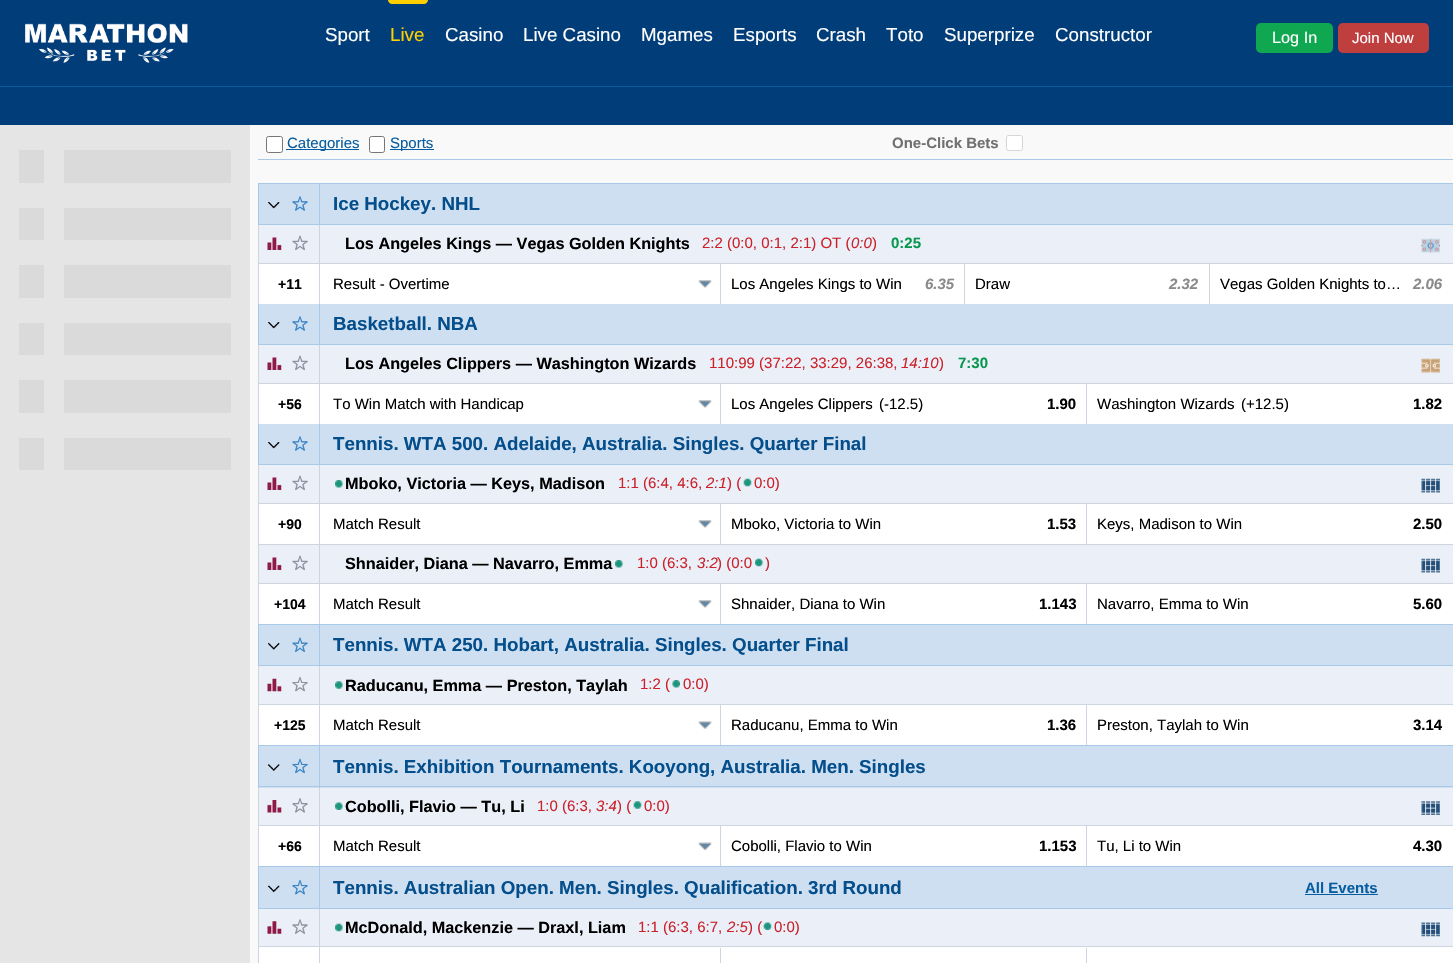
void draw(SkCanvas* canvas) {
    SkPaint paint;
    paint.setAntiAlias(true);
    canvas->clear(0xFFF9F9F9);
    paint.setColor(0xFF013D79);
    canvas->drawRect(SkRect::MakeXYWH(0, 0, 1453, 125), paint);
    canvas->drawImageRect(SkImages::DeferredFromEncodedData(SkData::MakeFromFileName("img1.png")), SkRect::MakeXYWH(25, 23, 163, 40), SkSamplingOptions());
    SkFont font1(fontMgr->matchFamilyStyle("Liberation Sans", SkFontStyle::Normal()), 18.75f);
    font1.setSubpixel(true);
    paint.setColor(0xFFFFFFFF);
    canvas->drawString("Sport", 325, 41, font1, paint);
    paint.setColor(0xFFFFCF00);
    canvas->drawPath(SkPathBuilder().moveTo(388, 0).lineTo(428, 0).cubicTo(428, 2, 426, 4, 424, 4).lineTo(392, 4).cubicTo(390, 4, 388, 2, 388, 0).close().detach(), paint);
    canvas->drawString("Live", 390, 41, font1, paint);
    paint.setColor(0xFFFFFFFF);
    canvas->drawString("Casino", 445, 41, font1, paint);
    canvas->drawString("Live Casino", 523, 41, font1, paint);
    canvas->drawString("Mgames", 641, 41, font1, paint);
    canvas->drawString("Esports", 733, 41, font1, paint);
    canvas->drawString("Crash", 816, 41, font1, paint);
    canvas->drawString("Toto", 886, 41, font1, paint);
    canvas->drawString("Superprize", 944, 41, font1, paint);
    canvas->drawString("Constructor", 1055, 41, font1, paint);
    paint.setColor(0xFF0FA750);
    canvas->drawRoundRect(SkRect::MakeXYWH(1256, 23, 77, 30), 5, 5, paint);
    SkFont font2(fontMgr->matchFamilyStyle("Liberation Sans", SkFontStyle::Normal()), 16.25f);
    font2.setSubpixel(true);
    paint.setColor(0xFFFFFFFF);
    canvas->drawString("Log In", 1272, 43, font2, paint);
    paint.setColor(0xFFBF3F3F);
    canvas->drawRoundRect(SkRect::MakeXYWH(1338, 23, 91, 30), 5, 5, paint);
    SkFont font3(fontMgr->matchFamilyStyle("Liberation Sans", SkFontStyle::Normal()), 15);
    font3.setSubpixel(true);
    paint.setColor(0xFFFFFFFF);
    canvas->drawString("Join Now", 1352, 43, font3, paint);
    paint.setColor(0xFF065DA0);
    canvas->drawRect(SkRect::MakeXYWH(0, 86, 1453, 1), paint);
    paint.setColor(0xFFE5E5E5);
    canvas->drawRect(SkRect::MakeXYWH(0, 125, 250, 838), paint);
    paint.setColor(0xFFDADADA);
    canvas->drawRect(SkRect::MakeXYWH(19, 150, 212, 33), paint);
    paint.setColor(0xFFE5E5E5);
    canvas->drawRect(SkRect::MakeXYWH(44, 150, 20, 33), paint);
    paint.setColor(0xFFDADADA);
    canvas->drawRect(SkRect::MakeXYWH(19, 208, 212, 32), paint);
    paint.setColor(0xFFE5E5E5);
    canvas->drawRect(SkRect::MakeXYWH(44, 208, 20, 32), paint);
    paint.setColor(0xFFDADADA);
    canvas->drawRect(SkRect::MakeXYWH(19, 265, 212, 33), paint);
    paint.setColor(0xFFE5E5E5);
    canvas->drawRect(SkRect::MakeXYWH(44, 265, 20, 33), paint);
    paint.setColor(0xFFDADADA);
    canvas->drawRect(SkRect::MakeXYWH(19, 323, 212, 32), paint);
    paint.setColor(0xFFE5E5E5);
    canvas->drawRect(SkRect::MakeXYWH(44, 323, 20, 32), paint);
    paint.setColor(0xFFDADADA);
    canvas->drawRect(SkRect::MakeXYWH(19, 380, 212, 33), paint);
    paint.setColor(0xFFE5E5E5);
    canvas->drawRect(SkRect::MakeXYWH(44, 380, 20, 33), paint);
    paint.setColor(0xFFDADADA);
    canvas->drawRect(SkRect::MakeXYWH(19, 438, 212, 32), paint);
    paint.setColor(0xFFE5E5E5);
    canvas->drawRect(SkRect::MakeXYWH(44, 438, 20, 32), paint);
    paint.setColor(0xFFFFFFFF);
    canvas->drawRoundRect(SkRect::MakeXYWH(266.5f, 136.5f, 16, 16), 2, 2, paint);
    paint.setStyle(SkPaint::kStroke_Style);
    paint.setStrokeWidth(1);
    paint.setColor(0xFF767676);
    canvas->drawRoundRect(SkRect::MakeXYWH(266.5f, 136.5f, 16, 16), 2, 2, paint);
    paint.setStyle(SkPaint::kFill_Style);
    paint.setColor(0xFF065DA0);
    canvas->drawRect(SkRect::MakeXYWH(286, 149, 73, 1), paint);
    canvas->drawString("Categories", 287, 148, font3, paint);
    paint.setColor(0xFFFFFFFF);
    canvas->drawRoundRect(SkRect::MakeXYWH(369.5f, 136.5f, 15, 16), 2, 2, paint);
    paint.setStyle(SkPaint::kStroke_Style);
    paint.setColor(0xFF767676);
    canvas->drawRoundRect(SkRect::MakeXYWH(369.5f, 136.5f, 15, 16), 2, 2, paint);
    paint.setStyle(SkPaint::kFill_Style);
    paint.setColor(0xFF065DA0);
    canvas->drawRect(SkRect::MakeXYWH(390, 149, 44, 1), paint);
    canvas->drawString("Sports", 390, 148, font3, paint);
    SkFont font4(fontMgr->matchFamilyStyle("Liberation Sans", SkFontStyle::Bold()), 15);
    font4.setSubpixel(true);
    paint.setColor(0xFF707070);
    canvas->drawString("One-Click Bets", 892, 148, font4, paint);
    paint.setColor(0xFFFFFFFF);
    canvas->drawRoundRect(SkRect::MakeXYWH(1006.5f, 135.5f, 16, 15), 2, 2, paint);
    paint.setStyle(SkPaint::kStroke_Style);
    paint.setColor(0xFFD6D6D6);
    canvas->drawRoundRect(SkRect::MakeXYWH(1006.5f, 135.5f, 16, 15), 2, 2, paint);
    paint.setStyle(SkPaint::kFill_Style);
    paint.setColor(0xFFA8CAE8);
    canvas->drawRect(SkRect::MakeXYWH(258, 159, 1195, 1), paint);
    paint.setColor(0xFFCEDFF2);
    canvas->drawRect(SkRect::MakeXYWH(259, 184, 1194, 40), paint);
    paint.setColor(0xFFA8CAE8);
    canvas->drawRect(SkRect::MakeXYWH(258, 183, 1195, 1), paint);
    canvas->drawRect(SkRect::MakeXYWH(258, 224, 31, 1), paint);
    canvas->drawRect(SkRect::MakeXYWH(258, 183, 1, 42), paint);
    canvas->drawImageRect(SkImages::DeferredFromEncodedData(SkData::MakeFromFileName("img2.png")), SkRect::MakeXYWH(268, 202, 12, 7), SkSamplingOptions());
    canvas->drawRect(SkRect::MakeXYWH(319, 183, 1, 42), paint);
    canvas->drawRect(SkRect::MakeXYWH(289, 224, 1164, 1), paint);
    canvas->drawImageRect(SkImages::DeferredFromEncodedData(SkData::MakeFromFileName("img3.png")), SkRect::MakeXYWH(292, 196, 16, 15), SkSamplingOptions());
    SkFont font5(fontMgr->matchFamilyStyle("Liberation Sans", SkFontStyle::Bold()), 18.75f);
    font5.setSubpixel(true);
    paint.setColor(0xFF044E8B);
    canvas->drawString("Ice Hockey. NHL", 333, 210, font5, paint);
    paint.setColor(0xFFFFFFFF);
    canvas->drawRect(SkRect::MakeXYWH(259, 264, 1194, 40), paint);
    paint.setColor(0xFFEBEFF7);
    canvas->drawRect(SkRect::MakeXYWH(259, 225, 60, 38), paint);
    paint.setColor(0xFFCDD5E1);
    canvas->drawRect(SkRect::MakeXYWH(319, 225, 1, 38), paint);
    canvas->drawRect(SkRect::MakeXYWH(258, 225, 1, 38), paint);
    canvas->drawImageRect(SkImages::DeferredFromEncodedData(SkData::MakeFromFileName("img4.png")), SkRect::MakeXYWH(267, 237, 15, 13), SkSamplingOptions());
    canvas->drawImageRect(SkImages::DeferredFromEncodedData(SkData::MakeFromFileName("img5.png")), SkRect::MakeXYWH(292, 235, 16, 16), SkSamplingOptions());
    paint.setColor(0xFFEBEFF7);
    canvas->drawRect(SkRect::MakeXYWH(320, 225, 1133, 38), paint);
    SkFont font6(fontMgr->matchFamilyStyle("Liberation Sans", SkFontStyle::Bold()), 16.25f);
    font6.setSubpixel(true);
    paint.setColor(0xFF000000);
    canvas->drawString("Los Angeles Kings — Vegas Golden Knights", 345, 249, font6, paint);
    paint.setColor(0xFFCB212A);
    canvas->drawString("2:2 (0:0, 0:1, 2:1) OT (", 702, 248, font3, paint);
    SkFont font7(fontMgr->matchFamilyStyle("Liberation Sans", SkFontStyle::Italic()), 15);
    font7.setSubpixel(true);
    canvas->drawString("0:0", 851, 248, font7, paint);
    canvas->drawString(")", 872, 248, font3, paint);
    paint.setColor(0xFF07974D);
    canvas->drawString("0:25", 891, 248, font4, paint);
    canvas->drawImageRect(SkImages::DeferredFromEncodedData(SkData::MakeFromFileName("img6.png")), SkRect::MakeXYWH(1421, 238, 19, 15), SkSamplingOptions());
    paint.setColor(0xFFCDD5E1);
    canvas->drawRect(SkRect::MakeXYWH(258, 263, 1195, 1), paint);
    canvas->drawRect(SkRect::MakeXYWH(319, 263, 1, 41), paint);
    canvas->drawRect(SkRect::MakeXYWH(258, 263, 1, 41), paint);
    SkFont font8(fontMgr->matchFamilyStyle("Liberation Sans", SkFontStyle::Bold()), 14);
    font8.setSubpixel(true);
    paint.setColor(0xFF000000);
    canvas->drawString("+11", 278, 289, font8, paint);
    canvas->drawImageRect(SkImages::DeferredFromEncodedData(SkData::MakeFromFileName("img7.png")), SkRect::MakeXYWH(698, 280, 14, 8), SkSamplingOptions());
    canvas->drawString("Result - Overtime", 333, 289, font3, paint);
    paint.setColor(0xFFCDD5E1);
    canvas->drawRect(SkRect::MakeXYWH(720, 264, 1, 41), paint);
    paint.setColor(0xFF000000);
    canvas->drawString("Los Angeles Kings to Win", 731, 289, font3, paint);
    SkFont font9(fontMgr->matchFamilyStyle("Liberation Sans", SkFontStyle::BoldItalic()), 15);
    font9.setSubpixel(true);
    paint.setColor(0xFF8A8A8A);
    canvas->drawString("6.35", 925, 289, font9, paint);
    paint.setColor(0xFFCDD5E1);
    canvas->drawRect(SkRect::MakeXYWH(964, 264, 1, 41), paint);
    paint.setColor(0xFF000000);
    canvas->drawString("Draw", 975, 289, font3, paint);
    paint.setColor(0xFF8A8A8A);
    canvas->drawString("2.32", 1169, 289, font9, paint);
    paint.setColor(0xFFCDD5E1);
    canvas->drawRect(SkRect::MakeXYWH(1209, 264, 1, 41), paint);
    paint.setColor(0xFF000000);
    canvas->drawString("Vegas Golden Knights to…", 1220, 289, font3, paint);
    paint.setColor(0xFF8A8A8A);
    canvas->drawString("2.06", 1413, 289, font9, paint);
    paint.setColor(0xFFCEDFF2);
    canvas->drawRect(SkRect::MakeXYWH(259, 304, 1194, 40), paint);
    paint.setColor(0xFFA8CAE8);
    canvas->drawRect(SkRect::MakeXYWH(258, 344, 31, 1), paint);
    canvas->drawRect(SkRect::MakeXYWH(258, 304, 1, 41), paint);
    canvas->drawImageRect(SkImages::DeferredFromEncodedData(SkData::MakeFromFileName("img2.png")), SkRect::MakeXYWH(268, 322, 12, 7), SkSamplingOptions());
    canvas->drawRect(SkRect::MakeXYWH(319, 304, 1, 41), paint);
    canvas->drawRect(SkRect::MakeXYWH(289, 344, 1164, 1), paint);
    canvas->drawImageRect(SkImages::DeferredFromEncodedData(SkData::MakeFromFileName("img3.png")), SkRect::MakeXYWH(292, 316, 16, 15), SkSamplingOptions());
    paint.setColor(0xFF044E8B);
    canvas->drawString("Basketball. NBA", 333, 330, font5, paint);
    paint.setColor(0xFFFFFFFF);
    canvas->drawRect(SkRect::MakeXYWH(259, 384, 1194, 40), paint);
    paint.setColor(0xFFEBEFF7);
    canvas->drawRect(SkRect::MakeXYWH(259, 345, 60, 38), paint);
    paint.setColor(0xFFCDD5E1);
    canvas->drawRect(SkRect::MakeXYWH(319, 345, 1, 38), paint);
    canvas->drawRect(SkRect::MakeXYWH(258, 345, 1, 38), paint);
    canvas->drawImageRect(SkImages::DeferredFromEncodedData(SkData::MakeFromFileName("img4.png")), SkRect::MakeXYWH(267, 357, 15, 13), SkSamplingOptions());
    canvas->drawImageRect(SkImages::DeferredFromEncodedData(SkData::MakeFromFileName("img5.png")), SkRect::MakeXYWH(292, 355, 16, 16), SkSamplingOptions());
    paint.setColor(0xFFEBEFF7);
    canvas->drawRect(SkRect::MakeXYWH(320, 345, 1133, 38), paint);
    paint.setColor(0xFF000000);
    canvas->drawString("Los Angeles Clippers — Washington Wizards", 345, 369, font6, paint);
    paint.setColor(0xFFCB212A);
    canvas->drawString("110:99 (37:22, 33:29, 26:38,", 709, 368, font3, paint);
    canvas->drawString("14:10", 901, 368, font7, paint);
    canvas->drawString(")", 939, 368, font3, paint);
    paint.setColor(0xFF07974D);
    canvas->drawString("7:30", 958, 368, font4, paint);
    canvas->drawImageRect(SkImages::DeferredFromEncodedData(SkData::MakeFromFileName("img8.png")), SkRect::MakeXYWH(1421, 358, 19, 15), SkSamplingOptions());
    paint.setColor(0xFFCDD5E1);
    canvas->drawRect(SkRect::MakeXYWH(258, 383, 1195, 1), paint);
    canvas->drawRect(SkRect::MakeXYWH(319, 383, 1, 41), paint);
    canvas->drawRect(SkRect::MakeXYWH(258, 383, 1, 41), paint);
    paint.setColor(0xFF000000);
    canvas->drawString("+56", 278, 409, font8, paint);
    canvas->drawImageRect(SkImages::DeferredFromEncodedData(SkData::MakeFromFileName("img7.png")), SkRect::MakeXYWH(698, 400, 14, 8), SkSamplingOptions());
    canvas->drawString("To Win Match with Handicap", 333, 409, font3, paint);
    paint.setColor(0xFFCDD5E1);
    canvas->drawRect(SkRect::MakeXYWH(720, 384, 1, 41), paint);
    paint.setColor(0xFF000000);
    canvas->drawString("Los Angeles Clippers", 731, 409, font3, paint);
    canvas->drawString("(-12.5)", 879, 409, font3, paint);
    canvas->drawString("1.90", 1047, 409, font4, paint);
    paint.setColor(0xFFCDD5E1);
    canvas->drawRect(SkRect::MakeXYWH(1086, 384, 1, 41), paint);
    paint.setColor(0xFF000000);
    canvas->drawString("Washington Wizards", 1097, 409, font3, paint);
    canvas->drawString("(+12.5)", 1241, 409, font3, paint);
    canvas->drawString("1.82", 1413, 409, font4, paint);
    paint.setColor(0xFFCEDFF2);
    canvas->drawRect(SkRect::MakeXYWH(259, 424, 1194, 40), paint);
    paint.setColor(0xFFA8CAE8);
    canvas->drawRect(SkRect::MakeXYWH(258, 464, 31, 1), paint);
    canvas->drawRect(SkRect::MakeXYWH(258, 424, 1, 41), paint);
    canvas->drawImageRect(SkImages::DeferredFromEncodedData(SkData::MakeFromFileName("img2.png")), SkRect::MakeXYWH(268, 442, 12, 7), SkSamplingOptions());
    canvas->drawRect(SkRect::MakeXYWH(319, 424, 1, 41), paint);
    canvas->drawRect(SkRect::MakeXYWH(289, 464, 1164, 1), paint);
    canvas->drawImageRect(SkImages::DeferredFromEncodedData(SkData::MakeFromFileName("img3.png")), SkRect::MakeXYWH(292, 436, 16, 15), SkSamplingOptions());
    paint.setColor(0xFF044E8B);
    canvas->drawString("Tennis. WTA 500. Adelaide, Australia. Singles. Quarter Final", 333, 450, font5, paint);
    paint.setColor(0xFFFFFFFF);
    canvas->drawRect(SkRect::MakeXYWH(259, 504, 1194, 120), paint);
    paint.setColor(0xFFEBEFF7);
    canvas->drawRect(SkRect::MakeXYWH(259, 465, 60, 38), paint);
    paint.setColor(0xFFCDD5E1);
    canvas->drawRect(SkRect::MakeXYWH(319, 465, 1, 38), paint);
    canvas->drawRect(SkRect::MakeXYWH(258, 465, 1, 38), paint);
    canvas->drawImageRect(SkImages::DeferredFromEncodedData(SkData::MakeFromFileName("img4.png")), SkRect::MakeXYWH(267, 477, 15, 13), SkSamplingOptions());
    canvas->drawImageRect(SkImages::DeferredFromEncodedData(SkData::MakeFromFileName("img5.png")), SkRect::MakeXYWH(292, 475, 16, 16), SkSamplingOptions());
    paint.setColor(0xFFEBEFF7);
    canvas->drawRect(SkRect::MakeXYWH(320, 465, 1133, 38), paint);
    canvas->drawImageRect(SkImages::DeferredFromEncodedData(SkData::MakeFromFileName("img9.png")), SkRect::MakeXYWH(335, 480, 8, 8), SkSamplingOptions());
    paint.setColor(0xFF000000);
    canvas->drawString("Mboko, Victoria — Keys, Madison", 345, 489, font6, paint);
    paint.setColor(0xFFCB212A);
    canvas->drawString("1:1 (6:4, 4:6,", 618, 488, font3, paint);
    canvas->drawString("2:1", 706, 488, font7, paint);
    canvas->drawString(") (", 727, 488, font3, paint);
    canvas->drawImageRect(SkImages::DeferredFromEncodedData(SkData::MakeFromFileName("img10.png")), SkRect::MakeXYWH(743, 478, 9, 9), SkSamplingOptions());
    canvas->drawString("0:0)", 754, 488, font3, paint);
    canvas->drawImageRect(SkImages::DeferredFromEncodedData(SkData::MakeFromFileName("img11.png")), SkRect::MakeXYWH(1421, 478, 19, 15), SkSamplingOptions());
    paint.setColor(0xFFCDD5E1);
    canvas->drawRect(SkRect::MakeXYWH(258, 503, 1195, 1), paint);
    canvas->drawRect(SkRect::MakeXYWH(319, 503, 1, 41), paint);
    canvas->drawRect(SkRect::MakeXYWH(258, 503, 1, 41), paint);
    paint.setColor(0xFF000000);
    canvas->drawString("+90", 278, 529, font8, paint);
    canvas->drawImageRect(SkImages::DeferredFromEncodedData(SkData::MakeFromFileName("img7.png")), SkRect::MakeXYWH(698, 520, 14, 8), SkSamplingOptions());
    canvas->drawString("Match Result", 333, 529, font3, paint);
    paint.setColor(0xFFCDD5E1);
    canvas->drawRect(SkRect::MakeXYWH(720, 504, 1, 41), paint);
    paint.setColor(0xFF000000);
    canvas->drawString("Mboko, Victoria to Win", 731, 529, font3, paint);
    canvas->drawString("1.53", 1047, 529, font4, paint);
    paint.setColor(0xFFCDD5E1);
    canvas->drawRect(SkRect::MakeXYWH(1086, 504, 1, 41), paint);
    paint.setColor(0xFF000000);
    canvas->drawString("Keys, Madison to Win", 1097, 529, font3, paint);
    canvas->drawString("2.50", 1413, 529, font4, paint);
    paint.setColor(0xFFEBEFF7);
    canvas->drawRect(SkRect::MakeXYWH(259, 545, 60, 38), paint);
    paint.setColor(0xFFCDD5E1);
    canvas->drawRect(SkRect::MakeXYWH(258, 544, 1195, 1), paint);
    canvas->drawRect(SkRect::MakeXYWH(319, 544, 1, 39), paint);
    canvas->drawRect(SkRect::MakeXYWH(258, 544, 1, 39), paint);
    canvas->drawImageRect(SkImages::DeferredFromEncodedData(SkData::MakeFromFileName("img4.png")), SkRect::MakeXYWH(267, 557, 15, 13), SkSamplingOptions());
    canvas->drawImageRect(SkImages::DeferredFromEncodedData(SkData::MakeFromFileName("img5.png")), SkRect::MakeXYWH(292, 555, 16, 16), SkSamplingOptions());
    paint.setColor(0xFFEBEFF7);
    canvas->drawRect(SkRect::MakeXYWH(320, 545, 1133, 38), paint);
    paint.setColor(0xFF000000);
    canvas->drawString("Shnaider, Diana — Navarro, Emma", 345, 569, font6, paint);
    canvas->drawImageRect(SkImages::DeferredFromEncodedData(SkData::MakeFromFileName("img9.png")), SkRect::MakeXYWH(615, 560, 8, 8), SkSamplingOptions());
    paint.setColor(0xFFCB212A);
    canvas->drawString("1:0 (6:3,", 637, 568, font3, paint);
    canvas->drawString("3:2", 697, 568, font7, paint);
    canvas->drawString(") (0:0", 717, 568, font3, paint);
    canvas->drawImageRect(SkImages::DeferredFromEncodedData(SkData::MakeFromFileName("img12.png")), SkRect::MakeXYWH(755, 558, 8, 9), SkSamplingOptions());
    canvas->drawString(")", 765, 568, font3, paint);
    canvas->drawImageRect(SkImages::DeferredFromEncodedData(SkData::MakeFromFileName("img11.png")), SkRect::MakeXYWH(1421, 558, 19, 15), SkSamplingOptions());
    paint.setColor(0xFFCDD5E1);
    canvas->drawRect(SkRect::MakeXYWH(258, 583, 1195, 1), paint);
    canvas->drawRect(SkRect::MakeXYWH(319, 583, 1, 41), paint);
    canvas->drawRect(SkRect::MakeXYWH(258, 583, 1, 41), paint);
    paint.setColor(0xFF000000);
    canvas->drawString("+104", 274, 609, font8, paint);
    canvas->drawImageRect(SkImages::DeferredFromEncodedData(SkData::MakeFromFileName("img7.png")), SkRect::MakeXYWH(698, 600, 14, 8), SkSamplingOptions());
    canvas->drawString("Match Result", 333, 609, font3, paint);
    paint.setColor(0xFFCDD5E1);
    canvas->drawRect(SkRect::MakeXYWH(720, 584, 1, 41), paint);
    paint.setColor(0xFF000000);
    canvas->drawString("Shnaider, Diana to Win", 731, 609, font3, paint);
    canvas->drawString("1.143", 1039, 609, font4, paint);
    paint.setColor(0xFFCDD5E1);
    canvas->drawRect(SkRect::MakeXYWH(1086, 584, 1, 41), paint);
    paint.setColor(0xFF000000);
    canvas->drawString("Navarro, Emma to Win", 1097, 609, font3, paint);
    canvas->drawString("5.60", 1413, 609, font4, paint);
    paint.setColor(0xFFCEDFF2);
    canvas->drawRect(SkRect::MakeXYWH(259, 625, 1194, 40), paint);
    paint.setColor(0xFFA8CAE8);
    canvas->drawRect(SkRect::MakeXYWH(258, 624, 1195, 1), paint);
    canvas->drawRect(SkRect::MakeXYWH(258, 665, 31, 1), paint);
    canvas->drawRect(SkRect::MakeXYWH(258, 624, 1, 42), paint);
    canvas->drawImageRect(SkImages::DeferredFromEncodedData(SkData::MakeFromFileName("img13.png")), SkRect::MakeXYWH(268, 643, 12, 7), SkSamplingOptions());
    canvas->drawRect(SkRect::MakeXYWH(319, 624, 1, 42), paint);
    canvas->drawRect(SkRect::MakeXYWH(289, 665, 1164, 1), paint);
    canvas->drawImageRect(SkImages::DeferredFromEncodedData(SkData::MakeFromFileName("img14.png")), SkRect::MakeXYWH(292, 637, 16, 16), SkSamplingOptions());
    paint.setColor(0xFF044E8B);
    canvas->drawString("Tennis. WTA 250. Hobart, Australia. Singles. Quarter Final", 333, 651, font5, paint);
    paint.setColor(0xFFFFFFFF);
    canvas->drawRect(SkRect::MakeXYWH(259, 705, 1194, 40), paint);
    paint.setColor(0xFFEBEFF7);
    canvas->drawRect(SkRect::MakeXYWH(259, 666, 60, 38), paint);
    paint.setColor(0xFFCDD5E1);
    canvas->drawRect(SkRect::MakeXYWH(319, 666, 1, 38), paint);
    canvas->drawRect(SkRect::MakeXYWH(258, 666, 1, 38), paint);
    canvas->drawImageRect(SkImages::DeferredFromEncodedData(SkData::MakeFromFileName("img15.png")), SkRect::MakeXYWH(267, 678, 15, 14), SkSamplingOptions());
    canvas->drawImageRect(SkImages::DeferredFromEncodedData(SkData::MakeFromFileName("img16.png")), SkRect::MakeXYWH(292, 677, 16, 15), SkSamplingOptions());
    paint.setColor(0xFFEBEFF7);
    canvas->drawRect(SkRect::MakeXYWH(320, 666, 1133, 38), paint);
    canvas->drawImageRect(SkImages::DeferredFromEncodedData(SkData::MakeFromFileName("img17.png")), SkRect::MakeXYWH(335, 681, 8, 8), SkSamplingOptions());
    paint.setColor(0xFF000000);
    canvas->drawString("Raducanu, Emma — Preston, Taylah", 345, 691, font6, paint);
    paint.setColor(0xFFCB212A);
    canvas->drawString("1:2 (", 640, 689, font3, paint);
    canvas->drawImageRect(SkImages::DeferredFromEncodedData(SkData::MakeFromFileName("img18.png")), SkRect::MakeXYWH(672, 680, 8, 8), SkSamplingOptions());
    canvas->drawString("0:0)", 683, 689, font3, paint);
    paint.setColor(0xFFCDD5E1);
    canvas->drawRect(SkRect::MakeXYWH(258, 704, 1195, 1), paint);
    canvas->drawRect(SkRect::MakeXYWH(319, 704, 1, 41), paint);
    canvas->drawRect(SkRect::MakeXYWH(258, 704, 1, 41), paint);
    paint.setColor(0xFF000000);
    canvas->drawString("+125", 274, 730, font8, paint);
    canvas->drawImageRect(SkImages::DeferredFromEncodedData(SkData::MakeFromFileName("img19.png")), SkRect::MakeXYWH(698, 721, 14, 8), SkSamplingOptions());
    canvas->drawString("Match Result", 333, 730, font3, paint);
    paint.setColor(0xFFCDD5E1);
    canvas->drawRect(SkRect::MakeXYWH(720, 705, 1, 41), paint);
    paint.setColor(0xFF000000);
    canvas->drawString("Raducanu, Emma to Win", 731, 730, font3, paint);
    canvas->drawString("1.36", 1047, 730, font4, paint);
    paint.setColor(0xFFCDD5E1);
    canvas->drawRect(SkRect::MakeXYWH(1086, 705, 1, 41), paint);
    paint.setColor(0xFF000000);
    canvas->drawString("Preston, Taylah to Win", 1097, 730, font3, paint);
    canvas->drawString("3.14", 1413, 730, font4, paint);
    paint.setColor(0xFFCEDFF2);
    canvas->drawRect(SkRect::MakeXYWH(259, 746, 1194, 42), paint);
    paint.setColor(0xFFA8CAE8);
    canvas->drawRect(SkRect::MakeXYWH(258, 745, 1195, 1), paint);
    canvas->drawRect(SkRect::MakeXYWH(258, 786, 31, 1), paint);
    canvas->drawRect(SkRect::MakeXYWH(258, 745, 1, 43), paint);
    canvas->drawImageRect(SkImages::DeferredFromEncodedData(SkData::MakeFromFileName("img20.png")), SkRect::MakeXYWH(268, 764, 12, 7), SkSamplingOptions());
    canvas->drawRect(SkRect::MakeXYWH(319, 745, 1, 43), paint);
    canvas->drawRect(SkRect::MakeXYWH(289, 786, 1164, 1), paint);
    canvas->drawImageRect(SkImages::DeferredFromEncodedData(SkData::MakeFromFileName("img21.png")), SkRect::MakeXYWH(292, 758, 16, 16), SkSamplingOptions());
    paint.setColor(0xFF044E8B);
    canvas->drawString("Tennis. Exhibition Tournaments. Kooyong, Australia. Men. Singles", 333, 773, font5, paint);
    paint.setColor(0xFFFFFFFF);
    canvas->drawRect(SkRect::MakeXYWH(259, 826, 1194, 40), paint);
    paint.setColor(0xFFEBEFF7);
    canvas->drawRect(SkRect::MakeXYWH(259, 788, 60, 37), paint);
    paint.setColor(0xFFCDD5E1);
    canvas->drawRect(SkRect::MakeXYWH(319, 788, 1, 37), paint);
    canvas->drawRect(SkRect::MakeXYWH(258, 788, 1, 37), paint);
    canvas->drawImageRect(SkImages::DeferredFromEncodedData(SkData::MakeFromFileName("img22.png")), SkRect::MakeXYWH(267, 800, 15, 13), SkSamplingOptions());
    canvas->drawImageRect(SkImages::DeferredFromEncodedData(SkData::MakeFromFileName("img23.png")), SkRect::MakeXYWH(292, 798, 16, 15), SkSamplingOptions());
    paint.setColor(0xFFEBEFF7);
    canvas->drawRect(SkRect::MakeXYWH(320, 788, 1133, 37), paint);
    canvas->drawImageRect(SkImages::DeferredFromEncodedData(SkData::MakeFromFileName("img24.png")), SkRect::MakeXYWH(335, 802, 8, 8), SkSamplingOptions());
    paint.setColor(0xFF000000);
    canvas->drawString("Cobolli, Flavio — Tu, Li", 345, 812, font6, paint);
    paint.setColor(0xFFCB212A);
    canvas->drawString("1:0 (6:3,", 537, 811, font3, paint);
    canvas->drawString("3:4", 596, 811, font7, paint);
    canvas->drawString(") (", 617, 811, font3, paint);
    canvas->drawImageRect(SkImages::DeferredFromEncodedData(SkData::MakeFromFileName("img25.png")), SkRect::MakeXYWH(633, 801, 9, 8), SkSamplingOptions());
    canvas->drawString("0:0)", 644, 811, font3, paint);
    canvas->drawImageRect(SkImages::DeferredFromEncodedData(SkData::MakeFromFileName("img26.png")), SkRect::MakeXYWH(1421, 801, 19, 14), SkSamplingOptions());
    paint.setColor(0xFFCDD5E1);
    canvas->drawRect(SkRect::MakeXYWH(258, 825, 1195, 1), paint);
    canvas->drawRect(SkRect::MakeXYWH(319, 825, 1, 41), paint);
    canvas->drawRect(SkRect::MakeXYWH(258, 825, 1, 41), paint);
    paint.setColor(0xFF000000);
    canvas->drawString("+66", 278, 851, font8, paint);
    canvas->drawImageRect(SkImages::DeferredFromEncodedData(SkData::MakeFromFileName("img27.png")), SkRect::MakeXYWH(698, 842, 14, 9), SkSamplingOptions());
    canvas->drawString("Match Result", 333, 851, font3, paint);
    paint.setColor(0xFFCDD5E1);
    canvas->drawRect(SkRect::MakeXYWH(720, 826, 1, 42), paint);
    paint.setColor(0xFF000000);
    canvas->drawString("Cobolli, Flavio to Win", 731, 851, font3, paint);
    canvas->drawString("1.153", 1039, 851, font4, paint);
    paint.setColor(0xFFCDD5E1);
    canvas->drawRect(SkRect::MakeXYWH(1086, 826, 1, 42), paint);
    paint.setColor(0xFF000000);
    canvas->drawString("Tu, Li to Win", 1097, 851, font3, paint);
    canvas->drawString("4.30", 1413, 851, font4, paint);
    paint.setColor(0xFFCEDFF2);
    canvas->drawRect(SkRect::MakeXYWH(259, 867, 1194, 41), paint);
    paint.setColor(0xFFA8CAE8);
    canvas->drawRect(SkRect::MakeXYWH(258, 866, 1195, 1), paint);
    canvas->drawRect(SkRect::MakeXYWH(258, 908, 31, 1), paint);
    canvas->drawRect(SkRect::MakeXYWH(258, 866, 1, 43), paint);
    canvas->drawImageRect(SkImages::DeferredFromEncodedData(SkData::MakeFromFileName("img28.png")), SkRect::MakeXYWH(268, 885, 12, 8), SkSamplingOptions());
    canvas->drawRect(SkRect::MakeXYWH(319, 866, 1, 43), paint);
    canvas->drawRect(SkRect::MakeXYWH(289, 908, 1164, 1), paint);
    canvas->drawImageRect(SkImages::DeferredFromEncodedData(SkData::MakeFromFileName("img29.png")), SkRect::MakeXYWH(292, 880, 16, 15), SkSamplingOptions());
    paint.setColor(0xFF044E8B);
    canvas->drawString("Tennis. Australian Open. Men. Singles. Qualification. 3rd Round", 333, 894, font5, paint);
    paint.setColor(0xFF065DA0);
    canvas->drawString("All Events", 1305, 893, font4, paint);
    canvas->drawRect(SkRect::MakeXYWH(1305, 894, 73, 1), paint);
    paint.setColor(0xFFFFFFFF);
    canvas->drawRect(SkRect::MakeXYWH(259, 947, 1194, 16), paint);
    paint.setColor(0xFFEBEFF7);
    canvas->drawRect(SkRect::MakeXYWH(259, 909, 60, 37), paint);
    paint.setColor(0xFFCDD5E1);
    canvas->drawRect(SkRect::MakeXYWH(319, 909, 1, 37), paint);
    canvas->drawRect(SkRect::MakeXYWH(258, 909, 1, 37), paint);
    canvas->drawImageRect(SkImages::DeferredFromEncodedData(SkData::MakeFromFileName("img30.png")), SkRect::MakeXYWH(267, 921, 15, 13), SkSamplingOptions());
    canvas->drawImageRect(SkImages::DeferredFromEncodedData(SkData::MakeFromFileName("img31.png")), SkRect::MakeXYWH(292, 919, 16, 15), SkSamplingOptions());
    paint.setColor(0xFFEBEFF7);
    canvas->drawRect(SkRect::MakeXYWH(320, 909, 1133, 37), paint);
    canvas->drawImageRect(SkImages::DeferredFromEncodedData(SkData::MakeFromFileName("img32.png")), SkRect::MakeXYWH(335, 923, 8, 9), SkSamplingOptions());
    paint.setColor(0xFF000000);
    canvas->drawString("McDonald, Mackenzie — Draxl, Liam", 345, 933, font6, paint);
    paint.setColor(0xFFCB212A);
    canvas->drawString("1:1 (6:3, 6:7,", 638, 932, font3, paint);
    canvas->drawString("2:5", 727, 932, font7, paint);
    canvas->drawString(") (", 748, 932, font3, paint);
    canvas->drawImageRect(SkImages::DeferredFromEncodedData(SkData::MakeFromFileName("img33.png")), SkRect::MakeXYWH(763, 922, 9, 8), SkSamplingOptions());
    canvas->drawString("0:0)", 774, 932, font3, paint);
    canvas->drawImageRect(SkImages::DeferredFromEncodedData(SkData::MakeFromFileName("img34.png")), SkRect::MakeXYWH(1421, 922, 19, 15), SkSamplingOptions());
    paint.setColor(0xFFCDD5E1);
    canvas->drawRect(SkRect::MakeXYWH(258, 946, 1195, 1), paint);
    canvas->drawRect(SkRect::MakeXYWH(319, 946, 1, 17), paint);
    canvas->drawRect(SkRect::MakeXYWH(258, 946, 1, 17), paint);
    canvas->drawRect(SkRect::MakeXYWH(720, 948, 1, 15), paint);
    canvas->drawRect(SkRect::MakeXYWH(1086, 948, 1, 15), paint);
}
